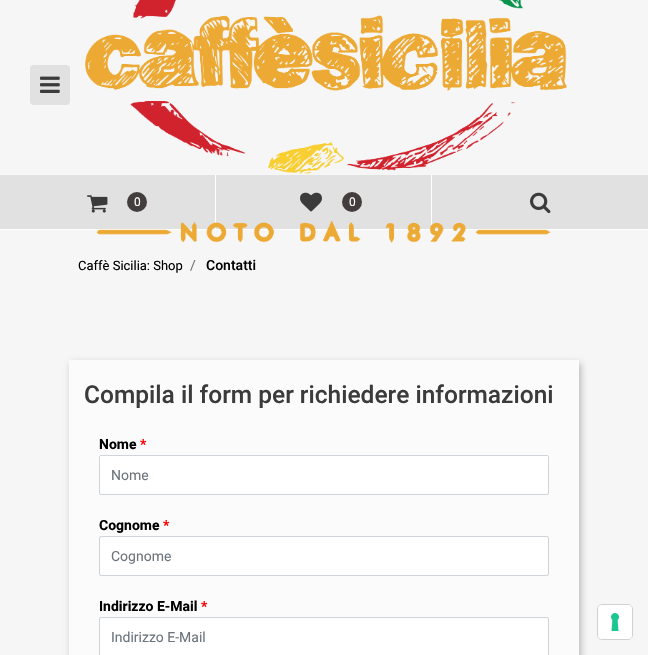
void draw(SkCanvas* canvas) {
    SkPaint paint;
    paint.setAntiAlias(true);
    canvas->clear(0xFFF6F6F6);
    paint.setColor(0xFFE1E1E1);
    canvas->drawRoundRect(SkRect::MakeXYWH(30, 65, 40, 40), 4, 4, paint);
    canvas->drawImageRect(SkImages::DeferredFromEncodedData(SkData::MakeFromFileName("img1.png")), SkRect::MakeXYWH(40, 76, 20, 17), SkSamplingOptions());
    canvas->drawRect(SkRect::MakeXYWH(0, 175, 215, 54), paint);
    paint.setColor(0xFFFFFFFF);
    canvas->drawRect(SkRect::MakeXYWH(215, 175, 1, 55), paint);
    canvas->drawRect(SkRect::MakeXYWH(0, 229, 216, 1), paint);
    canvas->drawImageRect(SkImages::DeferredFromEncodedData(SkData::MakeFromFileName("img3.png")), SkRect::MakeXYWH(87, 195, 21, 18), SkSamplingOptions());
    paint.setColor(0xFFE1E1E1);
    canvas->drawRect(SkRect::MakeXYWH(216, 175, 215, 54), paint);
    paint.setColor(0xFFFFFFFF);
    canvas->drawRect(SkRect::MakeXYWH(431, 175, 1, 55), paint);
    canvas->drawRect(SkRect::MakeXYWH(216, 229, 432, 1), paint);
    canvas->drawImageRect(SkImages::DeferredFromEncodedData(SkData::MakeFromFileName("img4.png")), SkRect::MakeXYWH(300, 192, 22, 20), SkSamplingOptions());
    paint.setColor(0xFFE1E1E1);
    canvas->drawRect(SkRect::MakeXYWH(432, 175, 216, 54), paint);
    canvas->drawImageRect(SkImages::DeferredFromEncodedData(SkData::MakeFromFileName("img5.png")), SkRect::MakeXYWH(530, 192, 21, 22), SkSamplingOptions());
    canvas->drawImageRect(SkImages::DeferredFromEncodedData(SkData::MakeFromFileName("img2.png")), SkRect::MakeXYWH(85, 0, 482, 243), SkSamplingOptions());
    paint.setColor(0xFF433E3D);
    canvas->drawCircle(137, 202, 10, paint);
    SkFont font1(fontMgr->matchFamilyStyle("Roboto", SkFontStyle::Normal()), 12);
    font1.setSubpixel(true);
    paint.setColor(0xFFFFFFFF);
    canvas->drawString("0", 134, 206, font1, paint);
    paint.setColor(0xFF433E3D);
    canvas->drawCircle(352, 202, 10, paint);
    paint.setColor(0xFFFFFFFF);
    canvas->drawString("0", 349, 206, font1, paint);
    SkFont font2(fontMgr->matchFamilyStyle("Roboto", SkFontStyle::Normal()), 13);
    font2.setSubpixel(true);
    paint.setColor(0xFF000000);
    canvas->drawString("Caffè Sicilia: Shop", 78, 270, font2, paint);
    SkFont font3(fontMgr->matchFamilyStyle("Roboto", SkFontStyle::Normal()), 14);
    font3.setSubpixel(true);
    paint.setColor(0xFF6C757D);
    canvas->drawString("/", 190, 270, font3, paint);
    SkFont font4(fontMgr->matchFamilyStyle("Roboto", SkFontStyle(500, SkFontStyle::kNormal_Width, SkFontStyle::kUpright_Slant)), 14);
    font4.setSubpixel(true);
    paint.setColor(0xFF000000);
    canvas->drawString("Contatti", 206, 270, font4, paint);
    paint.setColor(0x40000000);
    paint.setMaskFilter(SkMaskFilter::MakeBlur(kNormal_SkBlurStyle, 3.5f));
    canvas->drawRoundRect(SkRect::MakeXYWH(71, 363, 510, 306), 3, 3, paint);
    paint.setMaskFilter(nullptr);
    paint.setColor(0xFFFBFBFB);
    canvas->drawRect(SkRect::MakeXYWH(69, 360, 510, 295), paint);
    SkFont font5(fontMgr->matchFamilyStyle("Roboto", SkFontStyle(500, SkFontStyle::kNormal_Width, SkFontStyle::kUpright_Slant)), 24.5f);
    font5.setSubpixel(true);
    paint.setColor(0xFF3B3B3B);
    canvas->drawString("Compila il form per richiedere informazioni", 84, 403, font5, paint);
    SkFont font6(fontMgr->matchFamilyStyle("Roboto", SkFontStyle::Bold()), 14);
    font6.setSubpixel(true);
    paint.setColor(0xFF000000);
    canvas->drawString("Nome", 99, 449, font6, paint);
    paint.setColor(0xFFFF0000);
    canvas->drawString("*", 140, 449, font6, paint);
    paint.setColor(0xFFFFFFFF);
    canvas->drawRoundRect(SkRect::MakeXYWH(99.5f, 455.5f, 449, 39), 1.5f, 1.5f, paint);
    paint.setStyle(SkPaint::kStroke_Style);
    paint.setStrokeWidth(1);
    paint.setColor(0xFFCED4DA);
    canvas->drawRoundRect(SkRect::MakeXYWH(99.5f, 455.5f, 449, 39), 1.5f, 1.5f, paint);
    paint.setStyle(SkPaint::kFill_Style);
    paint.setColor(0xFF6C757D);
    canvas->drawString("Nome", 111, 480, font3, paint);
    paint.setColor(0xFF000000);
    canvas->drawString("Cognome", 99, 530, font6, paint);
    paint.setColor(0xFFFF0000);
    canvas->drawString("*", 163, 530, font6, paint);
    paint.setColor(0xFFFFFFFF);
    canvas->drawRoundRect(SkRect::MakeXYWH(99.5f, 536.5f, 449, 39), 1.5f, 1.5f, paint);
    paint.setStyle(SkPaint::kStroke_Style);
    paint.setColor(0xFFCED4DA);
    canvas->drawRoundRect(SkRect::MakeXYWH(99.5f, 536.5f, 449, 39), 1.5f, 1.5f, paint);
    paint.setStyle(SkPaint::kFill_Style);
    paint.setColor(0xFF6C757D);
    canvas->drawString("Cognome", 111, 561, font3, paint);
    paint.setColor(0xFF000000);
    canvas->drawString("Indirizzo E-Mail", 99, 611, font6, paint);
    paint.setColor(0xFFFF0000);
    canvas->drawString("*", 201, 611, font6, paint);
    paint.setColor(0xFFFFFFFF);
    canvas->drawRoundRect(SkRect::MakeXYWH(99.5f, 617.5f, 449, 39), 1.5f, 1.5f, paint);
    paint.setStyle(SkPaint::kStroke_Style);
    paint.setColor(0xFFCED4DA);
    canvas->drawRoundRect(SkRect::MakeXYWH(99.5f, 617.5f, 449, 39), 1.5f, 1.5f, paint);
    paint.setStyle(SkPaint::kFill_Style);
    paint.setColor(0xFF6C757D);
    canvas->drawString("Indirizzo E-Mail", 111, 642, font3, paint);
    paint.setStyle(SkPaint::kStroke_Style);
    paint.setColor(0xFFD1D1D1);
    canvas->drawRoundRect(SkRect::MakeXYWH(597.5f, 604.5f, 35, 35), 4.5f, 4.5f, paint);
    paint.setStyle(SkPaint::kFill_Style);
    paint.setColor(0xFFFFFFFF);
    canvas->drawRoundRect(SkRect::MakeXYWH(598, 605, 34, 34), 4, 4, paint);
    canvas->drawImageRect(SkImages::DeferredFromEncodedData(SkData::MakeFromFileName("img6.png")), SkRect::MakeXYWH(611, 613, 8, 18), SkSamplingOptions());
}
